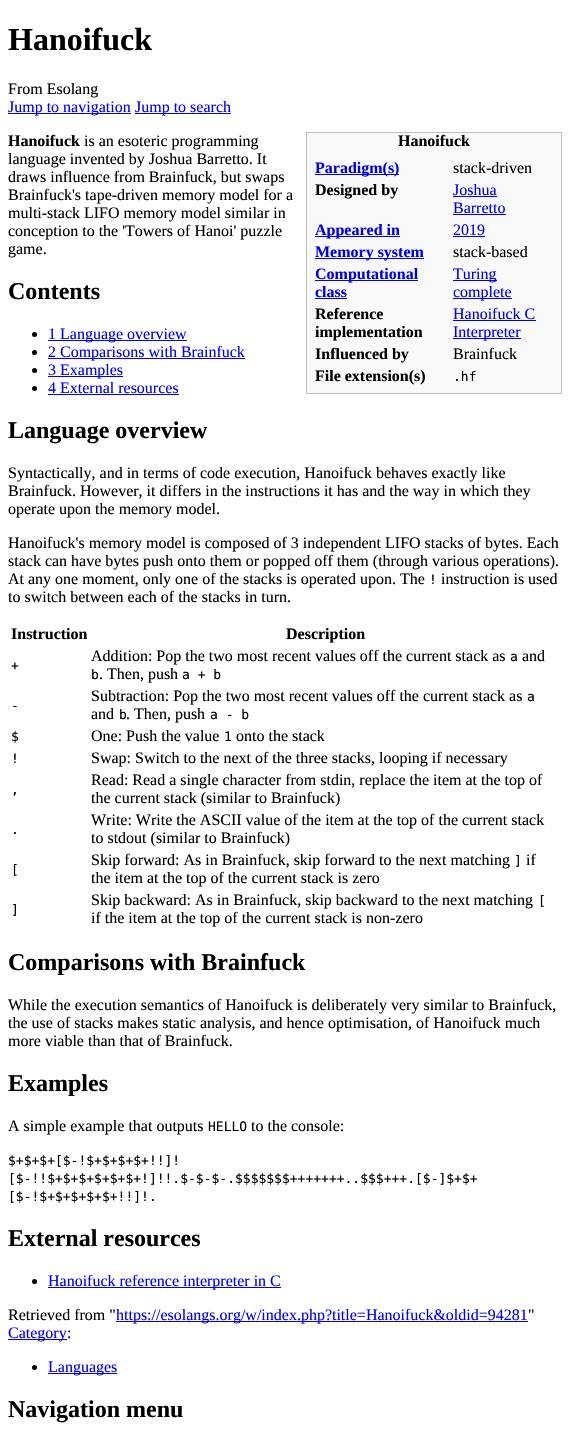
void draw(SkCanvas* canvas) {
    SkPaint paint;
    paint.setAntiAlias(true);
    canvas->clear(0xFFFFFFFF);
    SkFont font1(fontMgr->matchFamilyStyle("Liberation Serif", SkFontStyle::Bold()), 32);
    font1.setSubpixel(true);
    paint.setColor(0xFF000000);
    canvas->drawString("Hanoifuck", 8, 50, font1, paint);
    SkFont font2(fontMgr->matchFamilyStyle("Liberation Serif", SkFontStyle::Normal()), 16);
    font2.setSubpixel(true);
    canvas->drawString("From Esolang", 8, 94, font2, paint);
    paint.setColor(0xFF0000EE);
    canvas->drawRect(SkRect::MakeXYWH(8, 113, 123, 1), paint);
    canvas->drawString("Jump to navigation", 8, 112, font2, paint);
    canvas->drawRect(SkRect::MakeXYWH(135, 113, 96, 1), paint);
    canvas->drawString("Jump to search", 135, 112, font2, paint);
    SkFont font3(fontMgr->matchFamilyStyle("Liberation Serif", SkFontStyle::Bold()), 16);
    font3.setSubpixel(true);
    paint.setColor(0xFF000000);
    canvas->drawString("Hanoifuck", 8, 146, font3, paint);
    canvas->drawString("is an esoteric programming", 84, 146, font2, paint);
    canvas->drawString("language invented by Joshua Barretto. It", 8, 164, font2, paint);
    canvas->drawString("draws influence from Brainfuck, but swaps", 8, 182, font2, paint);
    canvas->drawString("Brainfuck's tape-driven memory model for a", 8, 200, font2, paint);
    canvas->drawString("multi-stack LIFO memory model similar in", 8, 218, font2, paint);
    canvas->drawString("conception to the 'Towers of Hanoi' puzzle", 8, 236, font2, paint);
    canvas->drawString("game.", 8, 254, font2, paint);
    paint.setColor(0xFFF9F9F9);
    canvas->drawRect(SkRect::MakeXYWH(306.5f, 132.5f, 255, 261), paint);
    paint.setStyle(SkPaint::kStroke_Style);
    paint.setStrokeWidth(1);
    paint.setColor(0xFFC0C0C0);
    canvas->drawRect(SkRect::MakeXYWH(306.5f, 132.5f, 255, 261), paint);
    paint.setStyle(SkPaint::kFill_Style);
    paint.setColor(0xFF000000);
    canvas->drawString("Hanoifuck", 398, 146, font3, paint);
    paint.setColor(0xFF0000EE);
    canvas->drawRect(SkRect::MakeXYWH(315, 174, 84, 1), paint);
    canvas->drawString("Paradigm(s)", 315, 173, font3, paint);
    paint.setColor(0xFF000000);
    canvas->drawString("stack-driven", 453, 173, font2, paint);
    canvas->drawString("Designed by", 315, 195, font3, paint);
    paint.setColor(0xFF0000EE);
    canvas->drawString("Joshua", 453, 195, font2, paint);
    canvas->drawRect(SkRect::MakeXYWH(453, 196, 44, 1), paint);
    canvas->drawString("Barretto", 453, 213, font2, paint);
    canvas->drawRect(SkRect::MakeXYWH(453, 214, 53, 1), paint);
    canvas->drawRect(SkRect::MakeXYWH(315, 236, 85, 1), paint);
    canvas->drawString("Appeared in", 315, 235, font3, paint);
    canvas->drawString("2019", 453, 235, font2, paint);
    canvas->drawRect(SkRect::MakeXYWH(453, 236, 32, 1), paint);
    canvas->drawRect(SkRect::MakeXYWH(315, 258, 109, 1), paint);
    canvas->drawString("Memory system", 315, 257, font3, paint);
    paint.setColor(0xFF000000);
    canvas->drawString("stack-based", 453, 257, font2, paint);
    paint.setColor(0xFF0000EE);
    canvas->drawRect(SkRect::MakeXYWH(315, 280, 103, 1), paint);
    canvas->drawString("Computational", 315, 279, font3, paint);
    canvas->drawString("class", 315, 297, font3, paint);
    canvas->drawRect(SkRect::MakeXYWH(315, 298, 32, 1), paint);
    canvas->drawRect(SkRect::MakeXYWH(453, 280, 44, 1), paint);
    canvas->drawString("Turing", 453, 279, font2, paint);
    canvas->drawRect(SkRect::MakeXYWH(453, 298, 59, 1), paint);
    canvas->drawString("complete", 453, 297, font2, paint);
    paint.setColor(0xFF000000);
    canvas->drawString("Reference", 315, 319, font3, paint);
    canvas->drawString("implementation", 315, 337, font3, paint);
    paint.setColor(0xFF0000EE);
    canvas->drawString("Hanoifuck C", 453, 319, font2, paint);
    canvas->drawRect(SkRect::MakeXYWH(453, 320, 83, 1), paint);
    canvas->drawRect(SkRect::MakeXYWH(453, 338, 68, 1), paint);
    canvas->drawString("Interpreter", 453, 337, font2, paint);
    paint.setColor(0xFF000000);
    canvas->drawString("Influenced by", 315, 359, font3, paint);
    canvas->drawString("Brainfuck", 453, 359, font2, paint);
    canvas->drawString("File extension(s)", 315, 381, font3, paint);
    SkFont font4(fontMgr->matchFamilyStyle("DejaVu Sans Mono", SkFontStyle::Normal()), 13);
    font4.setSubpixel(true);
    canvas->drawString(".hf", 453, 381, font4, paint);
    SkFont font5(fontMgr->matchFamilyStyle("Liberation Serif", SkFontStyle::Bold()), 24);
    font5.setSubpixel(true);
    canvas->drawString("Contents", 8, 299, font5, paint);
    canvas->drawCircle(34.5f, 334.5f, 2.5f, paint);
    paint.setColor(0xFF0000EE);
    canvas->drawRect(SkRect::MakeXYWH(48, 340, 139, 1), paint);
    canvas->drawString("1 Language overview", 48, 339, font2, paint);
    paint.setColor(0xFF000000);
    canvas->drawCircle(34.5f, 352.5f, 2.5f, paint);
    paint.setColor(0xFF0000EE);
    canvas->drawRect(SkRect::MakeXYWH(48, 358, 197, 1), paint);
    canvas->drawString("2 Comparisons with Brainfuck", 48, 357, font2, paint);
    paint.setColor(0xFF000000);
    canvas->drawCircle(34.5f, 370.5f, 2.5f, paint);
    paint.setColor(0xFF0000EE);
    canvas->drawRect(SkRect::MakeXYWH(48, 376, 75, 1), paint);
    canvas->drawString("3 Examples", 48, 375, font2, paint);
    paint.setColor(0xFF000000);
    canvas->drawCircle(34.5f, 388.5f, 2.5f, paint);
    paint.setColor(0xFF0000EE);
    canvas->drawString("4 External resources", 48, 393, font2, paint);
    canvas->drawRect(SkRect::MakeXYWH(48, 394, 131, 1), paint);
    paint.setColor(0xFF000000);
    canvas->drawString("Language overview", 8, 438, font5, paint);
    canvas->drawString("Syntactically, and in terms of code execution, Hanoifuck behaves exactly like", 8, 478, font2, paint);
    canvas->drawString("Brainfuck. However, it differs in the instructions it has and the way in which they", 8, 496, font2, paint);
    canvas->drawString("operate upon the memory model.", 8, 514, font2, paint);
    canvas->drawString("Hanoifuck's memory model is composed of 3 independent LIFO stacks of bytes. Each", 8, 548, font2, paint);
    canvas->drawString("stack can have bytes push onto them or popped off them (through various operations).", 8, 566, font2, paint);
    canvas->drawString("At any one moment, only one of the stacks is operated upon. The", 8, 584, font2, paint);
    canvas->drawString("!", 429, 584, font4, paint);
    canvas->drawString("instruction is used", 441, 584, font2, paint);
    canvas->drawString("to switch between each of the stacks in turn.", 8, 602, font2, paint);
    canvas->drawString("Instruction", 11, 639, font3, paint);
    canvas->drawString("Description", 286, 639, font3, paint);
    canvas->drawString("+", 11, 670, font4, paint);
    canvas->drawString("Addition: Pop the two most recent values off the current stack as", 91, 661, font2, paint);
    canvas->drawString("a", 510, 661, font4, paint);
    canvas->drawString("and", 522, 661, font2, paint);
    canvas->drawString("b", 91, 679, font4, paint);
    canvas->drawString(". Then, push", 99, 679, font2, paint);
    canvas->drawString("a + b", 182, 679, font4, paint);
    canvas->drawString("-", 11, 710, font4, paint);
    canvas->drawString("Subtraction: Pop the two most recent values off the current stack as", 91, 701, font2, paint);
    canvas->drawString("a", 527, 701, font4, paint);
    canvas->drawString("and", 91, 719, font2, paint);
    canvas->drawString("b", 119, 719, font4, paint);
    canvas->drawString(". Then, push", 126, 719, font2, paint);
    canvas->drawString("a - b", 210, 719, font4, paint);
    canvas->drawString("$", 11, 741, font4, paint);
    canvas->drawString("One: Push the value", 91, 741, font2, paint);
    canvas->drawString("1", 224, 741, font4, paint);
    canvas->drawString("onto the stack", 236, 741, font2, paint);
    canvas->drawString("!", 11, 763, font4, paint);
    canvas->drawString("Swap: Switch to the next of the three stacks, looping if necessary", 91, 763, font2, paint);
    canvas->drawString(",", 11, 794, font4, paint);
    canvas->drawString("Read: Read a single character from stdin, replace the item at the top of", 91, 785, font2, paint);
    canvas->drawString("the current stack (similar to Brainfuck)", 91, 803, font2, paint);
    canvas->drawString(".", 11, 834, font4, paint);
    canvas->drawString("Write: Write the ASCII value of the item at the top of the current stack", 91, 825, font2, paint);
    canvas->drawString("to stdout (similar to Brainfuck)", 91, 843, font2, paint);
    canvas->drawString("[", 11, 874, font4, paint);
    canvas->drawString("Skip forward: As in Brainfuck, skip forward to the next matching", 91, 865, font2, paint);
    canvas->drawString("]", 514, 865, font4, paint);
    canvas->drawString("if", 526, 865, font2, paint);
    canvas->drawString("the item at the top of the current stack is zero", 91, 883, font2, paint);
    canvas->drawString("]", 11, 914, font4, paint);
    canvas->drawString("Skip backward: As in Brainfuck, skip backward to the next matching", 91, 905, font2, paint);
    canvas->drawString("[", 538, 905, font4, paint);
    canvas->drawString("if the item at the top of the current stack is non-zero", 91, 923, font2, paint);
    canvas->drawString("Comparisons with Brainfuck", 8, 970, font5, paint);
    canvas->drawString("While the execution semantics of Hanoifuck is deliberately very similar to Brainfuck,", 8, 1010, font2, paint);
    canvas->drawString("the use of stacks makes static analysis, and hence optimisation, of Hanoifuck much", 8, 1028, font2, paint);
    canvas->drawString("more viable than that of Brainfuck.", 8, 1046, font2, paint);
    canvas->drawString("Examples", 8, 1091, font5, paint);
    canvas->drawString("A simple example that outputs", 8, 1131, font2, paint);
    canvas->drawString("HELLO", 208, 1131, font4, paint);
    canvas->drawString("to the console:", 251, 1131, font2, paint);
    canvas->drawString("$+$+$+[$-!$+$+$+$+!!]!", 8, 1165, font4, paint);
    canvas->drawString("[$-!!$+$+$+$+$+$+!]!!.$-$-$-.$$$$$$$+++++++..$$$+++.[$-]$+$+", 8, 1183, font4, paint);
    canvas->drawString("[$-!$+$+$+$+$+!!]!.", 8, 1201, font4, paint);
    canvas->drawString("External resources", 8, 1246, font5, paint);
    canvas->drawCircle(34.5f, 1281.5f, 2.5f, paint);
    paint.setColor(0xFF0000EE);
    canvas->drawRect(SkRect::MakeXYWH(48, 1287, 233, 1), paint);
    canvas->drawString("Hanoifuck reference interpreter in C", 48, 1286, font2, paint);
    paint.setColor(0xFF000000);
    canvas->drawString("Retrieved from \"", 8, 1320, font2, paint);
    paint.setColor(0xFF0000EE);
    canvas->drawRect(SkRect::MakeXYWH(116, 1321, 412, 1), paint);
    canvas->drawString("https://esolangs.org/w/index.php?title=Hanoifuck&oldid=94281", 116, 1320, font2, paint);
    paint.setColor(0xFF000000);
    canvas->drawString("\"", 528, 1320, font2, paint);
    paint.setColor(0xFF0000EE);
    canvas->drawRect(SkRect::MakeXYWH(8, 1339, 59, 1), paint);
    canvas->drawString("Category", 8, 1338, font2, paint);
    paint.setColor(0xFF000000);
    canvas->drawString(":", 67, 1338, font2, paint);
    canvas->drawCircle(34.5f, 1367.5f, 2.5f, paint);
    paint.setColor(0xFF0000EE);
    canvas->drawRect(SkRect::MakeXYWH(48, 1373, 69, 1), paint);
    canvas->drawString("Languages", 48, 1372, font2, paint);
    paint.setColor(0xFF000000);
    canvas->drawString("Navigation menu", 8, 1417, font5, paint);
}
